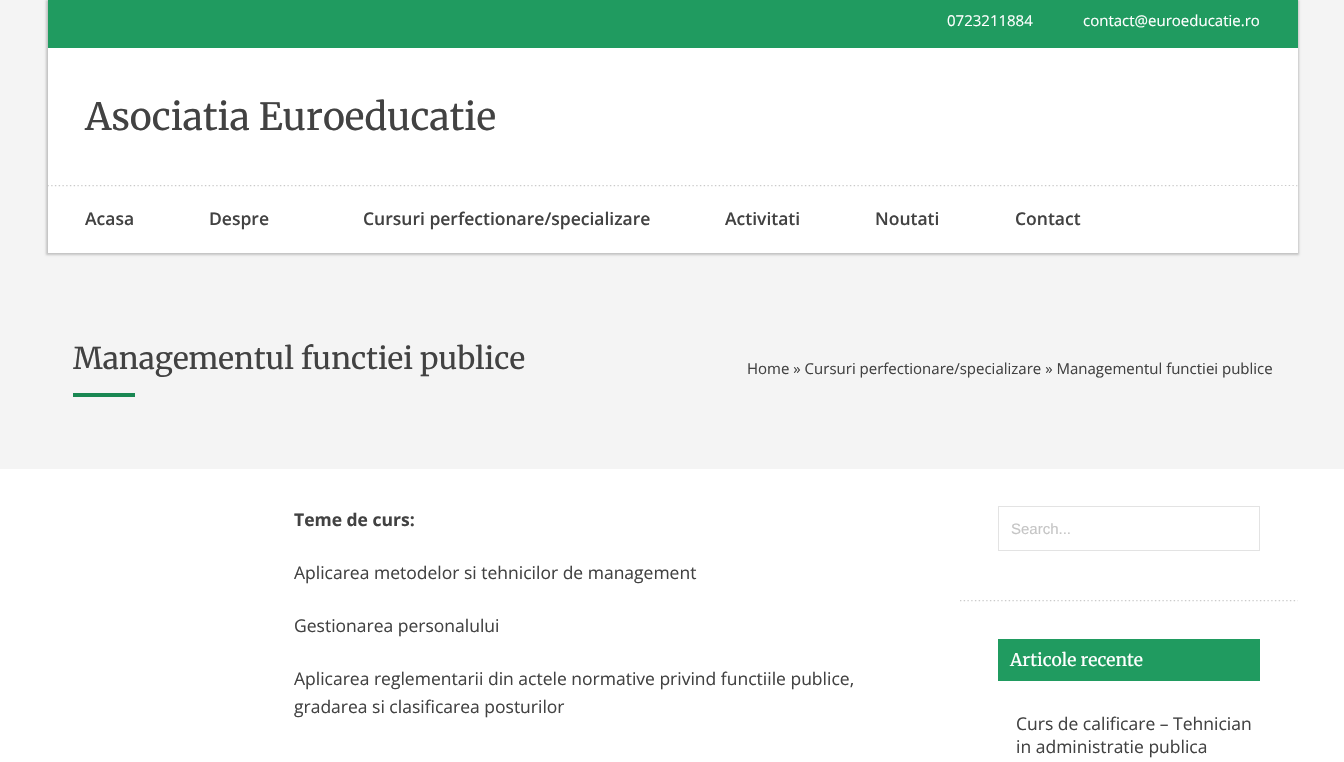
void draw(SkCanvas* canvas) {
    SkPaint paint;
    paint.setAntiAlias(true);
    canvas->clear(0xFFFFFFFF);
    paint.setColor(0xFFF4F4F4);
    canvas->drawRect(SkRect::MakeXYWH(0, 0, 1344, 469), paint);
    paint.setColor(0x33000000);
    paint.setMaskFilter(SkMaskFilter::MakeBlur(kNormal_SkBlurStyle, 1));
    canvas->drawRect(SkRect::MakeXYWH(46, 0, 1253, 255), paint);
    paint.setMaskFilter(nullptr);
    paint.setColor(0xFFFFFFFF);
    canvas->drawRect(SkRect::MakeXYWH(48, 48, 1250, 205), paint);
    paint.setColor(0xFF209B60);
    canvas->drawRect(SkRect::MakeXYWH(48, 0, 1250, 48), paint);
    SkFont font1(fontMgr->matchFamilyStyle("Open Sans", SkFontStyle::Normal()), 15);
    font1.setSubpixel(true);
    paint.setColor(0xFFFFFFFF);
    canvas->drawString("0723211884", 947, 26, font1, paint);
    canvas->drawString("contact@euroeducatie.ro", 1083, 26, font1, paint);
    SkFont font2(fontMgr->matchFamilyStyle("Merriweather", SkFontStyle::Normal()), 37.5f);
    font2.setSubpixel(true);
    paint.setColor(0xFF424242);
    canvas->drawString("Asociatia Euroeducatie", 85, 130, font2, paint);
    canvas->drawImageRect(SkImages::DeferredFromEncodedData(SkData::MakeFromFileName("img1.png")), SkRect::MakeXYWH(47, 185, 1251, 2), SkSamplingOptions());
    paint.setColor(0xFFFFFFFF);
    canvas->drawRect(SkRect::MakeXYWH(1196, 186, 98, 1), paint);
    SkFont font3(fontMgr->matchFamilyStyle("Open Sans", SkFontStyle(600, SkFontStyle::kNormal_Width, SkFontStyle::kUpright_Slant)), 17.5f);
    font3.setSubpixel(true);
    paint.setColor(0xFF424242);
    canvas->drawString("Acasa", 85, 225, font3, paint);
    canvas->drawString("Despre", 209, 225, font3, paint);
    canvas->drawString("Cursuri perfectionare/specializare", 363, 225, font3, paint);
    canvas->drawString("Activitati", 725, 225, font3, paint);
    canvas->drawString("Noutati", 875, 225, font3, paint);
    canvas->drawString("Contact", 1015, 225, font3, paint);
    SkFont font4(fontMgr->matchFamilyStyle("Merriweather", SkFontStyle::Normal()), 30);
    font4.setSubpixel(true);
    canvas->drawString("Managementul functiei publice", 73, 369, font4, paint);
    paint.setColor(0xFF198752);
    canvas->drawRect(SkRect::MakeXYWH(73, 393, 62, 4), paint);
    paint.setColor(0xFF424242);
    canvas->drawString("Home » Cursuri perfectionare/specializare » Managementul functiei publice", 747, 374, font1, paint);
    SkFont font5(fontMgr->matchFamilyStyle("Open Sans", SkFontStyle::Bold()), 17.5f);
    font5.setSubpixel(true);
    canvas->drawString("Teme de curs:", 294, 526, font5, paint);
    SkFont font6(fontMgr->matchFamilyStyle("Open Sans", SkFontStyle::Normal()), 17.5f);
    font6.setSubpixel(true);
    canvas->drawString("Aplicarea metodelor si tehnicilor de management", 294, 579, font6, paint);
    canvas->drawString("Gestionarea personalului", 294, 632, font6, paint);
    canvas->drawString("Aplicarea reglementarii din actele normative privind functiile publice,", 294, 685, font6, paint);
    canvas->drawString("gradarea si clasificarea posturilor", 294, 713, font6, paint);
    canvas->drawImageRect(SkImages::DeferredFromEncodedData(SkData::MakeFromFileName("img2.png")), SkRect::MakeXYWH(960, 600, 338, 2), SkSamplingOptions());
    paint.setStyle(SkPaint::kStroke_Style);
    paint.setStrokeWidth(1);
    paint.setColor(0xFFE3E3E3);
    canvas->drawRect(SkRect::MakeXYWH(998.5f, 506.5f, 261, 44), paint);
    SkFont font7(fontMgr->matchFamilyStyle("Liberation Sans", SkFontStyle::Normal()), 15);
    font7.setSubpixel(true);
    paint.setStyle(SkPaint::kFill_Style);
    paint.setColor(0xFFC5C5C5);
    canvas->drawString("Search...", 1011, 534, font7, paint);
    paint.setColor(0xFF209B60);
    canvas->drawRect(SkRect::MakeXYWH(998, 639, 262, 42), paint);
    SkFont font8(fontMgr->matchFamilyStyle("Merriweather", SkFontStyle::Normal()), 17.5f);
    font8.setSubpixel(true);
    paint.setColor(0xFFFFFFFF);
    canvas->drawString("Articole recente", 1010, 666, font8, paint);
    paint.setColor(0xFF424242);
    canvas->drawString("Curs de calificare – Tehnician", 1016, 730, font6, paint);
    canvas->drawString("in administratie publica", 1016, 753, font6, paint);
}
